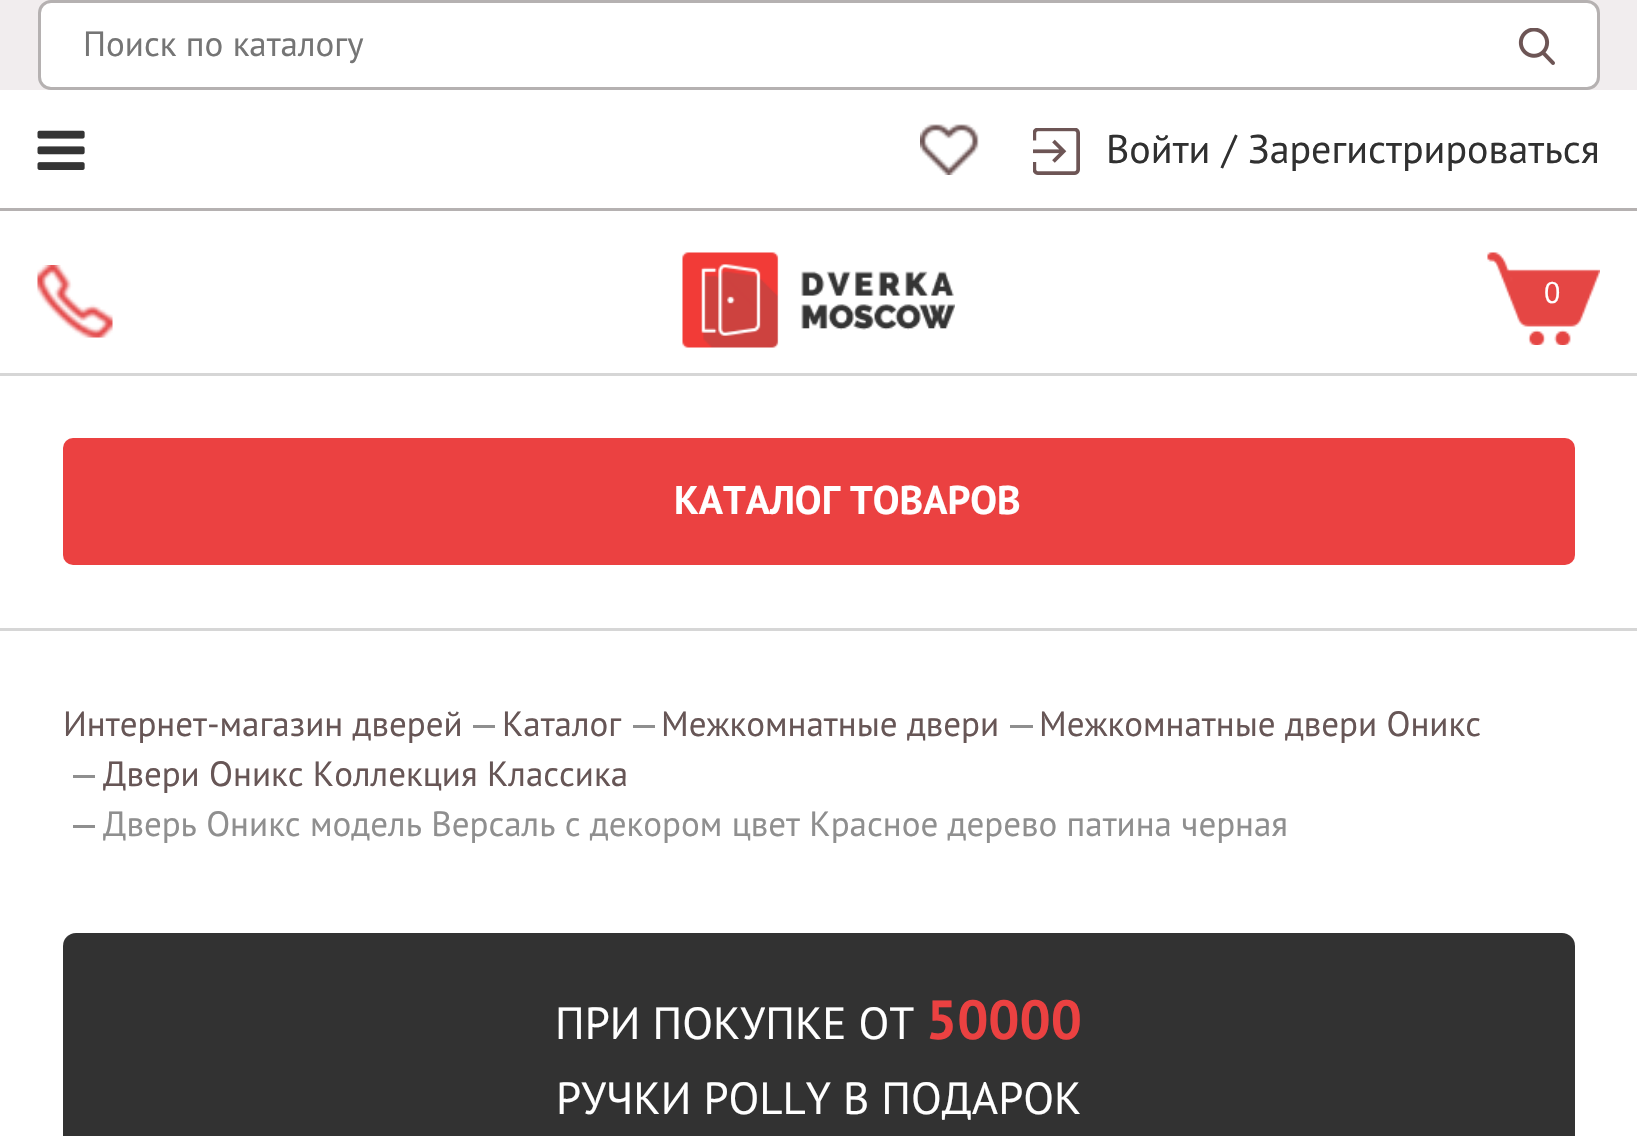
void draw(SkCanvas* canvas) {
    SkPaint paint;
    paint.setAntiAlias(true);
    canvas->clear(0xFFFFFFFF);
    paint.setColor(0xFFF1EDEE);
    canvas->drawRect(SkRect::MakeXYWH(0, 0, 1637, 90), paint);
    paint.setColor(0xFFFFFFFF);
    canvas->drawRoundRect(SkRect::MakeXYWH(39.5f, 1.5f, 1559, 87), 11.5f, 11.5f, paint);
    paint.setStyle(SkPaint::kStroke_Style);
    paint.setStrokeWidth(3);
    paint.setColor(0xFFB5B1B1);
    canvas->drawRoundRect(SkRect::MakeXYWH(39.5f, 1.5f, 1559, 87), 11.5f, 11.5f, paint);
    SkFont font1(fontMgr->matchFamilyStyle("PT Sans", SkFontStyle::Normal()), 35);
    font1.setSubpixel(true);
    paint.setStyle(SkPaint::kFill_Style);
    paint.setColor(0xFF757575);
    canvas->drawString("Поиск по каталогу", 83, 56, font1, paint);
    canvas->drawImageRect(SkImages::DeferredFromEncodedData(SkData::MakeFromFileName("img1.png")), SkRect::MakeXYWH(1518, 28, 37, 37), SkSamplingOptions());
    paint.setColor(0xFFB5B1B1);
    canvas->drawRect(SkRect::MakeXYWH(0, 208, 1637, 3), paint);
    canvas->drawImageRect(SkImages::DeferredFromEncodedData(SkData::MakeFromFileName("img2.png")), SkRect::MakeXYWH(37, 130, 48, 40), SkSamplingOptions());
    canvas->drawImageRect(SkImages::DeferredFromEncodedData(SkData::MakeFromFileName("img3.png")), SkRect::MakeXYWH(920, 124, 59, 51), SkSamplingOptions());
    canvas->drawImageRect(SkImages::DeferredFromEncodedData(SkData::MakeFromFileName("img4.png")), SkRect::MakeXYWH(1033, 128, 47, 47), SkSamplingOptions());
    SkFont font2(fontMgr->matchFamilyStyle("PT Sans", SkFontStyle::Normal()), 40);
    font2.setSubpixel(true);
    paint.setColor(0xFF303030);
    canvas->drawString("Войти", 1106, 163, font2, paint);
    canvas->drawString("/", 1222, 163, font2, paint);
    canvas->drawString("Зарегистрироваться", 1248, 163, font2, paint);
    canvas->drawImageRect(SkImages::DeferredFromEncodedData(SkData::MakeFromFileName("img5.png")), SkRect::MakeXYWH(37, 265, 76, 73), SkSamplingOptions());
    canvas->drawImageRect(SkImages::DeferredFromEncodedData(SkData::MakeFromFileName("img6.png")), SkRect::MakeXYWH(682, 252, 273, 96), SkSamplingOptions());
    canvas->drawImageRect(SkImages::DeferredFromEncodedData(SkData::MakeFromFileName("img7.png")), SkRect::MakeXYWH(1487, 252, 113, 93), SkSamplingOptions());
    SkFont font3(fontMgr->matchFamilyStyle("PT Sans", SkFontStyle::Normal()), 30);
    font3.setSubpixel(true);
    paint.setColor(0xFFFFFFFF);
    canvas->drawString("0", 1544, 303, font3, paint);
    paint.setColor(0xFFD6D6D6);
    canvas->drawRect(SkRect::MakeXYWH(0, 373, 1637, 3), paint);
    canvas->drawRect(SkRect::MakeXYWH(0, 628, 1637, 3), paint);
    paint.setColor(0xFFEB4141);
    canvas->drawRoundRect(SkRect::MakeXYWH(63, 438, 1512, 127), 10, 10, paint);
    SkFont font4(fontMgr->matchFamilyStyle("PT Sans", SkFontStyle::Bold()), 40);
    font4.setSubpixel(true);
    paint.setColor(0xFFFFFFFF);
    canvas->drawString("КАТАЛОГ ТОВАРОВ", 674, 514, font4, paint);
    paint.setColor(0xFF675656);
    canvas->drawString("Интернет-магазин дверей", 63, 736, font1, paint);
    paint.setColor(0xFF8F8F8F);
    canvas->drawRect(SkRect::MakeXYWH(473, 725, 22, 3), paint);
    paint.setColor(0xFF675656);
    canvas->drawString("Каталог", 502, 736, font1, paint);
    paint.setColor(0xFF8F8F8F);
    canvas->drawRect(SkRect::MakeXYWH(633, 725, 22, 3), paint);
    paint.setColor(0xFF675656);
    canvas->drawString("Межкомнатные двери", 661, 736, font1, paint);
    paint.setColor(0xFF8F8F8F);
    canvas->drawRect(SkRect::MakeXYWH(1010, 725, 23, 3), paint);
    paint.setColor(0xFF675656);
    canvas->drawString("Межкомнатные двери Оникс", 1039, 736, font1, paint);
    paint.setColor(0xFF8F8F8F);
    canvas->drawRect(SkRect::MakeXYWH(73, 775, 22, 3), paint);
    paint.setColor(0xFF675656);
    canvas->drawString("Двери Оникс Коллекция Классика", 103, 786, font1, paint);
    paint.setColor(0xFF8F8F8F);
    canvas->drawRect(SkRect::MakeXYWH(73, 825, 22, 3), paint);
    canvas->drawString("Дверь Оникс модель Версаль с декором цвет Красное дерево патина черная", 103, 836, font1, paint);
    paint.setColor(0xFF323232);
    canvas->drawRoundRect(SkRect::MakeXYWH(63, 933, 1512, 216), 13, 13, paint);
    SkFont font5(fontMgr->matchFamilyStyle("PT Sans", SkFontStyle::Normal()), 45);
    font5.setSubpixel(true);
    paint.setColor(0xFFFFFFFF);
    canvas->drawString("ПРИ ПОКУПКЕ ОТ", 555, 1039, font5, paint);
    SkFont font6(fontMgr->matchFamilyStyle("PT Sans", SkFontStyle::Bold()), 55);
    font6.setSubpixel(true);
    paint.setColor(0xFFEB4141);
    canvas->drawString("50000", 926, 1039, font6, paint);
    paint.setColor(0xFFFFFFFF);
    canvas->drawString("РУЧКИ POLLY В ПОДАРОК", 556, 1114, font5, paint);
}
